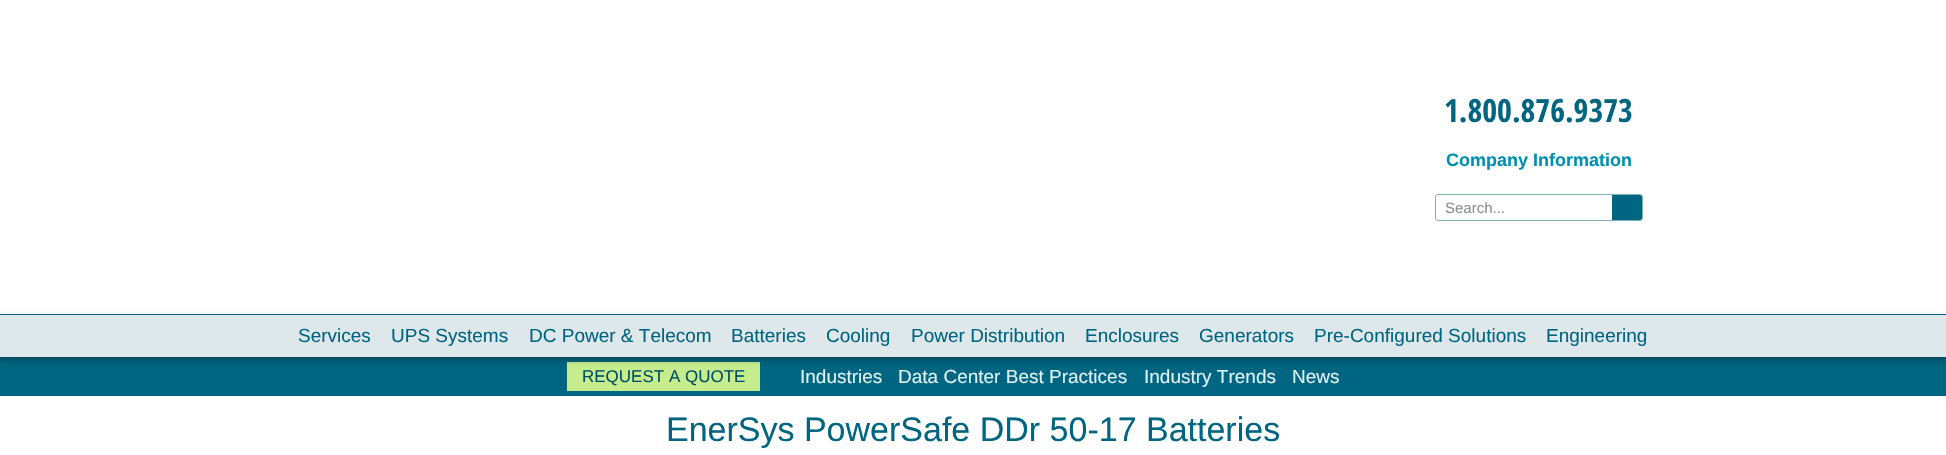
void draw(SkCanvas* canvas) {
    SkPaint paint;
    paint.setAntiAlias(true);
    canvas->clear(0xFFFFFFFF);
    SkFont font1(fontMgr->matchFamilyStyle("Open Sans Condensed", SkFontStyle::Bold()), 32);
    font1.setSubpixel(true);
    paint.setColor(0xFF006580);
    canvas->drawString("1.800.876.9373", 1444, 122, font1, paint);
    SkFont font2(fontMgr->matchFamilyStyle("Liberation Sans", SkFontStyle::Bold()), 18);
    font2.setSubpixel(true);
    paint.setColor(0xFF0090B4);
    canvas->drawString("Company Information", 1446, 166, font2, paint);
    paint.setStyle(SkPaint::kStroke_Style);
    paint.setStrokeWidth(1);
    paint.setColor(0xFF7FB2BF);
    canvas->drawRoundRect(SkRect::MakeXYWH(1435.5f, 194.5f, 207, 26), 2.5f, 2.5f, paint);
    SkFont font3(fontMgr->matchFamilyStyle("Liberation Sans", SkFontStyle::Normal()), 15);
    font3.setSubpixel(true);
    paint.setStyle(SkPaint::kFill_Style);
    paint.setColor(0xFF8C8F93);
    canvas->drawString("Search...", 1445, 213, font3, paint);
    paint.setColor(0xFF006580);
    canvas->drawPath(SkPathBuilder().moveTo(1612, 195).lineTo(1640, 195).cubicTo(1641, 195, 1642, 196, 1642, 197).lineTo(1642, 218).cubicTo(1642, 219, 1641, 220, 1640, 220).lineTo(1612, 220).close().detach(), paint);
    paint.setColor(0x52000000);
    paint.setMaskFilter(SkMaskFilter::MakeBlur(kNormal_SkBlurStyle, 3));
    canvas->drawRect(SkRect::MakeXYWH(0, 360, 1946, 39), paint);
    paint.setMaskFilter(nullptr);
    paint.setColor(0xFF006580);
    canvas->drawRect(SkRect::MakeXYWH(0, 357, 1946, 39), paint);
    paint.setColor(0xFFC6EC8D);
    canvas->drawRect(SkRect::MakeXYWH(567, 362, 193, 29), paint);
    canvas->save();
    canvas->clipPath(SkPathBuilder(SkPathFillType::kEvenOdd).moveTo(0, 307).lineTo(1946, 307).lineTo(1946, 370).lineTo(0, 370).close().moveTo(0, 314).lineTo(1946, 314).lineTo(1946, 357).lineTo(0, 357).close().detach(), true);
    paint.setColor(0x52000000);
    paint.setMaskFilter(SkMaskFilter::MakeBlur(kNormal_SkBlurStyle, 3));
    canvas->drawRect(SkRect::MakeXYWH(0, 317, 1946, 43), paint);
    paint.setMaskFilter(nullptr);
    canvas->restore();
    paint.setColor(0xEDDBE5E7);
    canvas->drawRect(SkRect::MakeXYWH(0, 315, 1946, 42), paint);
    paint.setColor(0xFF006580);
    canvas->drawRect(SkRect::MakeXYWH(0, 314, 1946, 1), paint);
    SkFont font4(fontMgr->matchFamilyStyle("Liberation Sans", SkFontStyle::Normal()), 19);
    font4.setSubpixel(true);
    canvas->drawString("Services", 298, 342, font4, paint);
    canvas->drawString("UPS Systems", 391, 342, font4, paint);
    canvas->drawString("DC Power & Telecom", 529, 342, font4, paint);
    canvas->drawString("Batteries", 731, 342, font4, paint);
    canvas->drawString("Cooling", 826, 342, font4, paint);
    canvas->drawString("Power Distribution", 911, 342, font4, paint);
    canvas->drawString("Enclosures", 1085, 342, font4, paint);
    canvas->drawString("Generators", 1199, 342, font4, paint);
    canvas->drawString("Pre-Configured Solutions", 1314, 342, font4, paint);
    canvas->drawString("Engineering", 1546, 342, font4, paint);
    SkFont font5(fontMgr->matchFamilyStyle("Liberation Sans", SkFontStyle::Normal()), 17);
    font5.setSubpixel(true);
    paint.setColor(0xFF004F63);
    canvas->drawString("REQUEST A QUOTE", 582, 382, font5, paint);
    paint.setColor(0xFFDCF1F6);
    canvas->drawString("Industries", 800, 383, font4, paint);
    canvas->drawString("Data Center Best Practices", 898, 383, font4, paint);
    canvas->drawString("Industry Trends", 1144, 383, font4, paint);
    canvas->drawString("News", 1292, 383, font4, paint);
    paint.setColor(0xFFFFFFFF);
    canvas->drawRect(SkRect::MakeXYWH(0, 396, 1946, 9), paint);
    SkFont font6(fontMgr->matchFamilyStyle("Liberation Sans", SkFontStyle::Normal()), 34);
    font6.setSubpixel(true);
    paint.setColor(0xFF006580);
    canvas->drawString("EnerSys PowerSafe DDr 50-17 Batteries", 666, 441, font6, paint);
}
